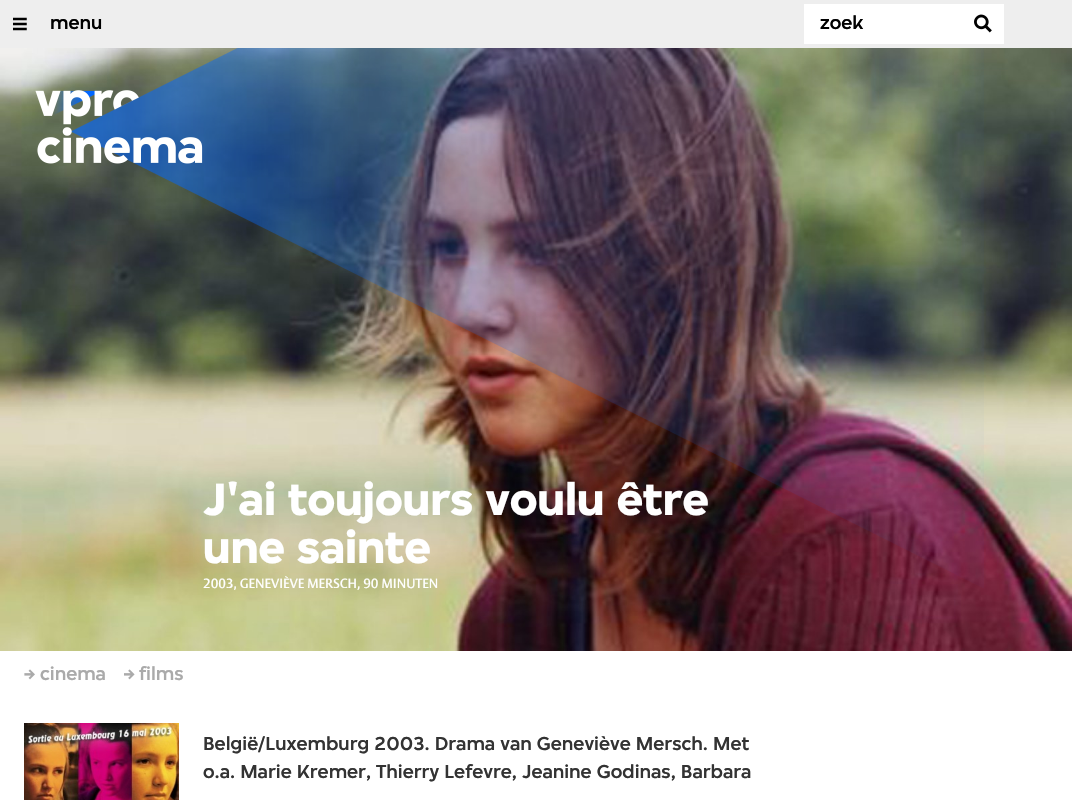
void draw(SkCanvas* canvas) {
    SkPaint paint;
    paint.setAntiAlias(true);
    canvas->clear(0xFFFFFFFF);
    paint.setColor(0xFFEEEEEE);
    canvas->drawRect(SkRect::MakeXYWH(0, 0, 1072, 48), paint);
    canvas->drawImageRect(SkImages::DeferredFromEncodedData(SkData::MakeFromFileName("img1.png")), SkRect::MakeXYWH(13, 17, 14, 14), SkSamplingOptions());
    SkFont font1(fontMgr->matchFamilyStyle("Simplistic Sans", SkFontStyle(500, SkFontStyle::kNormal_Width, SkFontStyle::kUpright_Slant)), 20);
    font1.setSubpixel(true);
    paint.setColor(0xFF000000);
    canvas->drawString("menu", 50, 29, font1, paint);
    paint.setColor(0xFFFFFFFF);
    canvas->drawRect(SkRect::MakeXYWH(804, 4, 200, 40), paint);
    paint.setColor(0xFF000000);
    canvas->drawString("zoek", 820, 29, font1, paint);
    canvas->drawImageRect(SkImages::DeferredFromEncodedData(SkData::MakeFromFileName("img2.png")), SkRect::MakeXYWH(974, 14, 18, 19), SkSamplingOptions());
    canvas->drawImageRect(SkImages::DeferredFromEncodedData(SkData::MakeFromFileName("img3.png")), SkRect::MakeXYWH(0, 48, 1072, 603), SkSamplingOptions());
    canvas->drawImageRect(SkImages::DeferredFromEncodedData(SkData::MakeFromFileName("img4.png")), SkRect::MakeXYWH(35, 48, 949, 540), SkSamplingOptions());
    SkFont font2(fontMgr->matchFamilyStyle("Simplistic Sans", SkFontStyle::Bold()), 48);
    font2.setSubpixel(true);
    paint.setColor(0xFFFFFFFF);
    canvas->drawString("J'ai toujours voulu être", 203, 515, font2, paint);
    canvas->drawString("une sainte", 203, 563, font2, paint);
    SkFont font3(fontMgr->matchFamilyStyle("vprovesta", SkFontStyle::Normal()), 13);
    font3.setSubpixel(true);
    canvas->drawString("2003, GENEVIÈVE MERSCH, 90 MINUTEN", 203, 588, font3, paint);
    canvas->drawImageRect(SkImages::DeferredFromEncodedData(SkData::MakeFromFileName("img5.png")), SkRect::MakeXYWH(24, 669, 11, 11), SkSamplingOptions());
    paint.setColor(0xFFAAAAAA);
    canvas->drawString("cinema", 40, 680, font1, paint);
    canvas->drawImageRect(SkImages::DeferredFromEncodedData(SkData::MakeFromFileName("img6.png")), SkRect::MakeXYWH(124, 669, 11, 11), SkSamplingOptions());
    canvas->drawString("films", 139, 680, font1, paint);
    canvas->drawImageRect(SkImages::DeferredFromEncodedData(SkData::MakeFromFileName("img7.png")), SkRect::MakeXYWH(24, 723, 155, 77), SkSamplingOptions());
    paint.setColor(0xFF333333);
    canvas->drawString("België/Luxemburg 2003. Drama van Geneviève Mersch. Met", 203, 750, font1, paint);
    canvas->drawString("o.a. Marie Kremer, Thierry Lefevre, Jeanine Godinas, Barbara", 203, 778, font1, paint);
}
